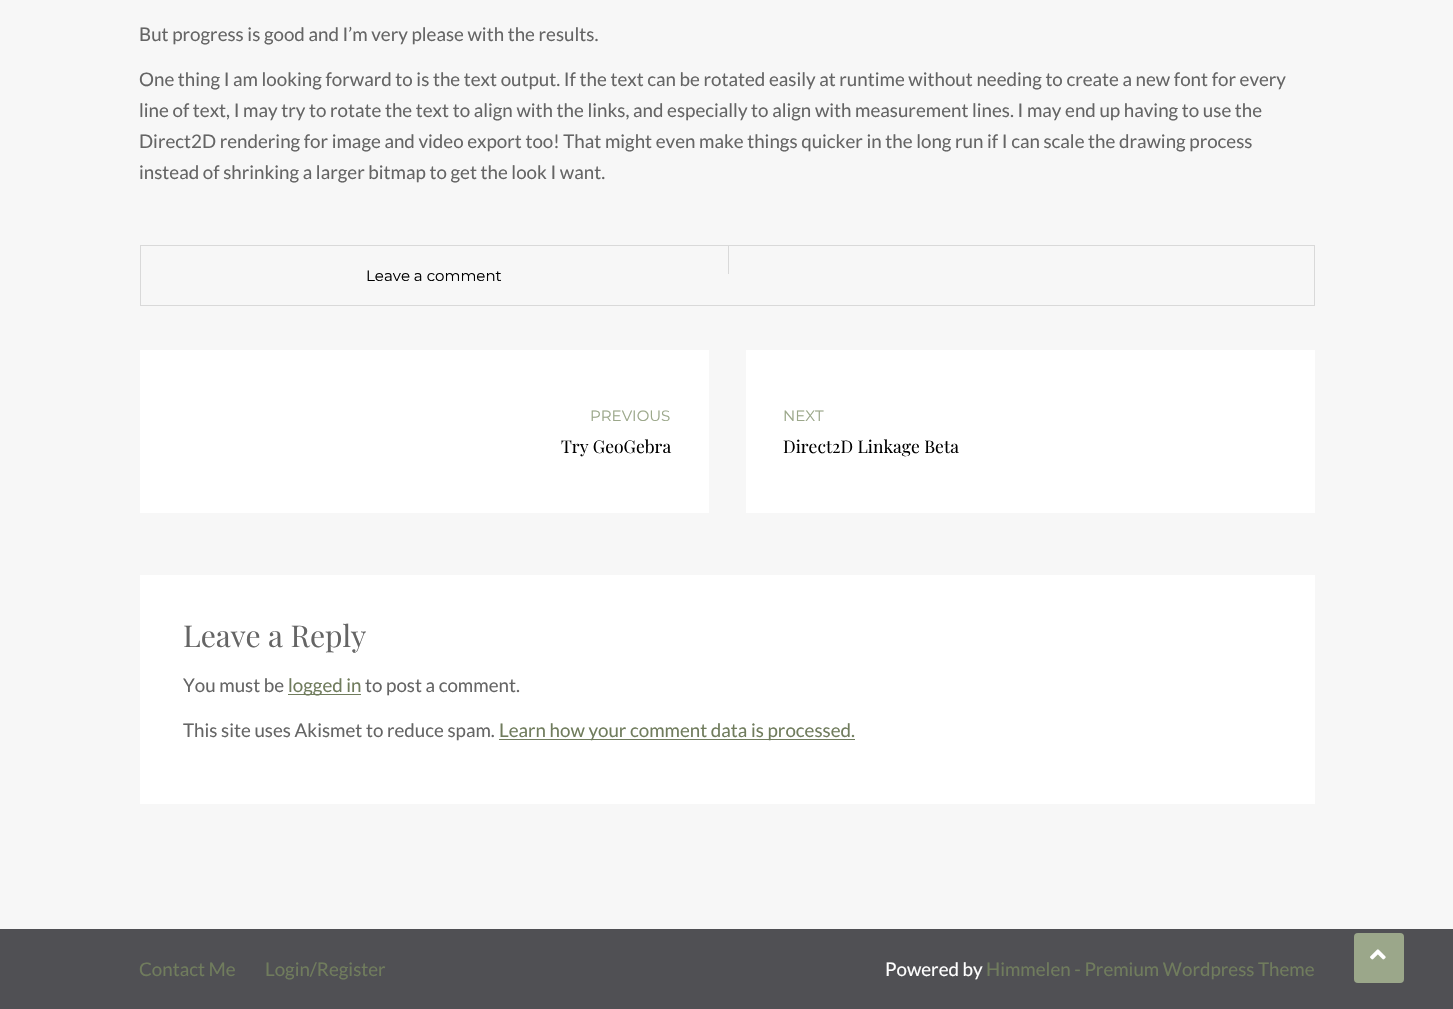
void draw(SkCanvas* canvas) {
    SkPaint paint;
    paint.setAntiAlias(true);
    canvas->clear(0xFFF7F7F7);
    SkFont font1(fontMgr->matchFamilyStyle("Lato", SkFontStyle::Normal()), 18.75f);
    font1.setSubpixel(true);
    paint.setColor(0xFF656565);
    canvas->drawString("But progress is good and I’m very please with the results.", 139, 41, font1, paint);
    canvas->drawString("One thing I am looking forward to is the text output. If the text can be rotated easily at runtime without needing to create a new font for every", 139, 86, font1, paint);
    canvas->drawString("line of text, I may try to rotate the text to align with the links, and especially to align with measurement lines. I may end up having to use the", 139, 117, font1, paint);
    canvas->drawString("Direct2D rendering for image and video export too! That might even make things quicker in the long run if I can scale the drawing process", 139, 148, font1, paint);
    canvas->drawString("instead of shrinking a larger bitmap to get the look I want.", 139, 179, font1, paint);
    paint.setStyle(SkPaint::kStroke_Style);
    paint.setStrokeWidth(1);
    paint.setColor(0xFFD9D9D9);
    canvas->drawRect(SkRect::MakeXYWH(140.5f, 245.5f, 1174, 60), paint);
    paint.setStyle(SkPaint::kFill_Style);
    canvas->drawRect(SkRect::MakeXYWH(728, 246, 1, 28), paint);
    SkFont font2(fontMgr->matchFamilyStyle("Montserrat", SkFontStyle(100, SkFontStyle::kNormal_Width, SkFontStyle::kUpright_Slant)), 15);
    font2.setSubpixel(true);
    paint.setColor(0xFF000000);
    canvas->drawString("Leave a comment", 366, 281, font2, paint);
    paint.setColor(0xFFFFFFFF);
    canvas->drawRect(SkRect::MakeXYWH(140, 350, 569, 163), paint);
    paint.setColor(0xFF9BA78A);
    canvas->drawString("PREVIOUS", 590, 421, font2, paint);
    SkFont font3(fontMgr->matchFamilyStyle("Playfair Display", SkFontStyle::Normal()), 17.5f);
    font3.setSubpixel(true);
    paint.setColor(0xFF000000);
    canvas->drawString("Try GeoGebra", 561, 453, font3, paint);
    paint.setColor(0xFFFFFFFF);
    canvas->drawRect(SkRect::MakeXYWH(746, 350, 569, 163), paint);
    paint.setColor(0xFF9BA78A);
    canvas->drawString("NEXT", 783, 421, font2, paint);
    paint.setColor(0xFF000000);
    canvas->drawString("Direct2D Linkage Beta", 783, 453, font3, paint);
    paint.setColor(0xFFFFFFFF);
    canvas->drawRect(SkRect::MakeXYWH(140, 575, 1175, 229), paint);
    SkFont font4(fontMgr->matchFamilyStyle("Playfair Display", SkFontStyle::Normal()), 30);
    font4.setSubpixel(true);
    paint.setColor(0xFF656565);
    canvas->drawString("Leave a Reply", 183, 647, font4, paint);
    canvas->drawString("You must be", 183, 692, font1, paint);
    paint.setColor(0xFF707C5D);
    canvas->drawRect(SkRect::MakeXYWH(288, 694, 73, 1), paint);
    canvas->drawString("logged in", 288, 692, font1, paint);
    paint.setColor(0xFF656565);
    canvas->drawString("to post a comment.", 365, 692, font1, paint);
    canvas->drawString("This site uses Akismet to reduce spam.", 183, 737, font1, paint);
    paint.setColor(0xFF707C5D);
    canvas->drawRect(SkRect::MakeXYWH(499, 739, 356, 1), paint);
    canvas->drawString("Learn how your comment data is processed.", 499, 737, font1, paint);
    paint.setColor(0xFF505054);
    canvas->drawRect(SkRect::MakeXYWH(0, 929, 1453, 80), paint);
    paint.setColor(0xFF707C5D);
    canvas->drawString("Contact Me", 139, 976, font1, paint);
    canvas->drawString("Login/Register", 265, 976, font1, paint);
    paint.setColor(0xFFFFFFFF);
    canvas->drawString("Powered by", 885, 976, font1, paint);
    paint.setColor(0xFF707C5D);
    canvas->drawString("Himmelen - Premium Wordpress Theme", 986, 976, font1, paint);
    paint.setColor(0xFF9BA78A);
    canvas->drawRoundRect(SkRect::MakeXYWH(1354, 933, 50, 50), 4, 4, paint);
    canvas->drawImageRect(SkImages::DeferredFromEncodedData(SkData::MakeFromFileName("img1.png")), SkRect::MakeXYWH(1370, 949, 16, 11), SkSamplingOptions());
}
